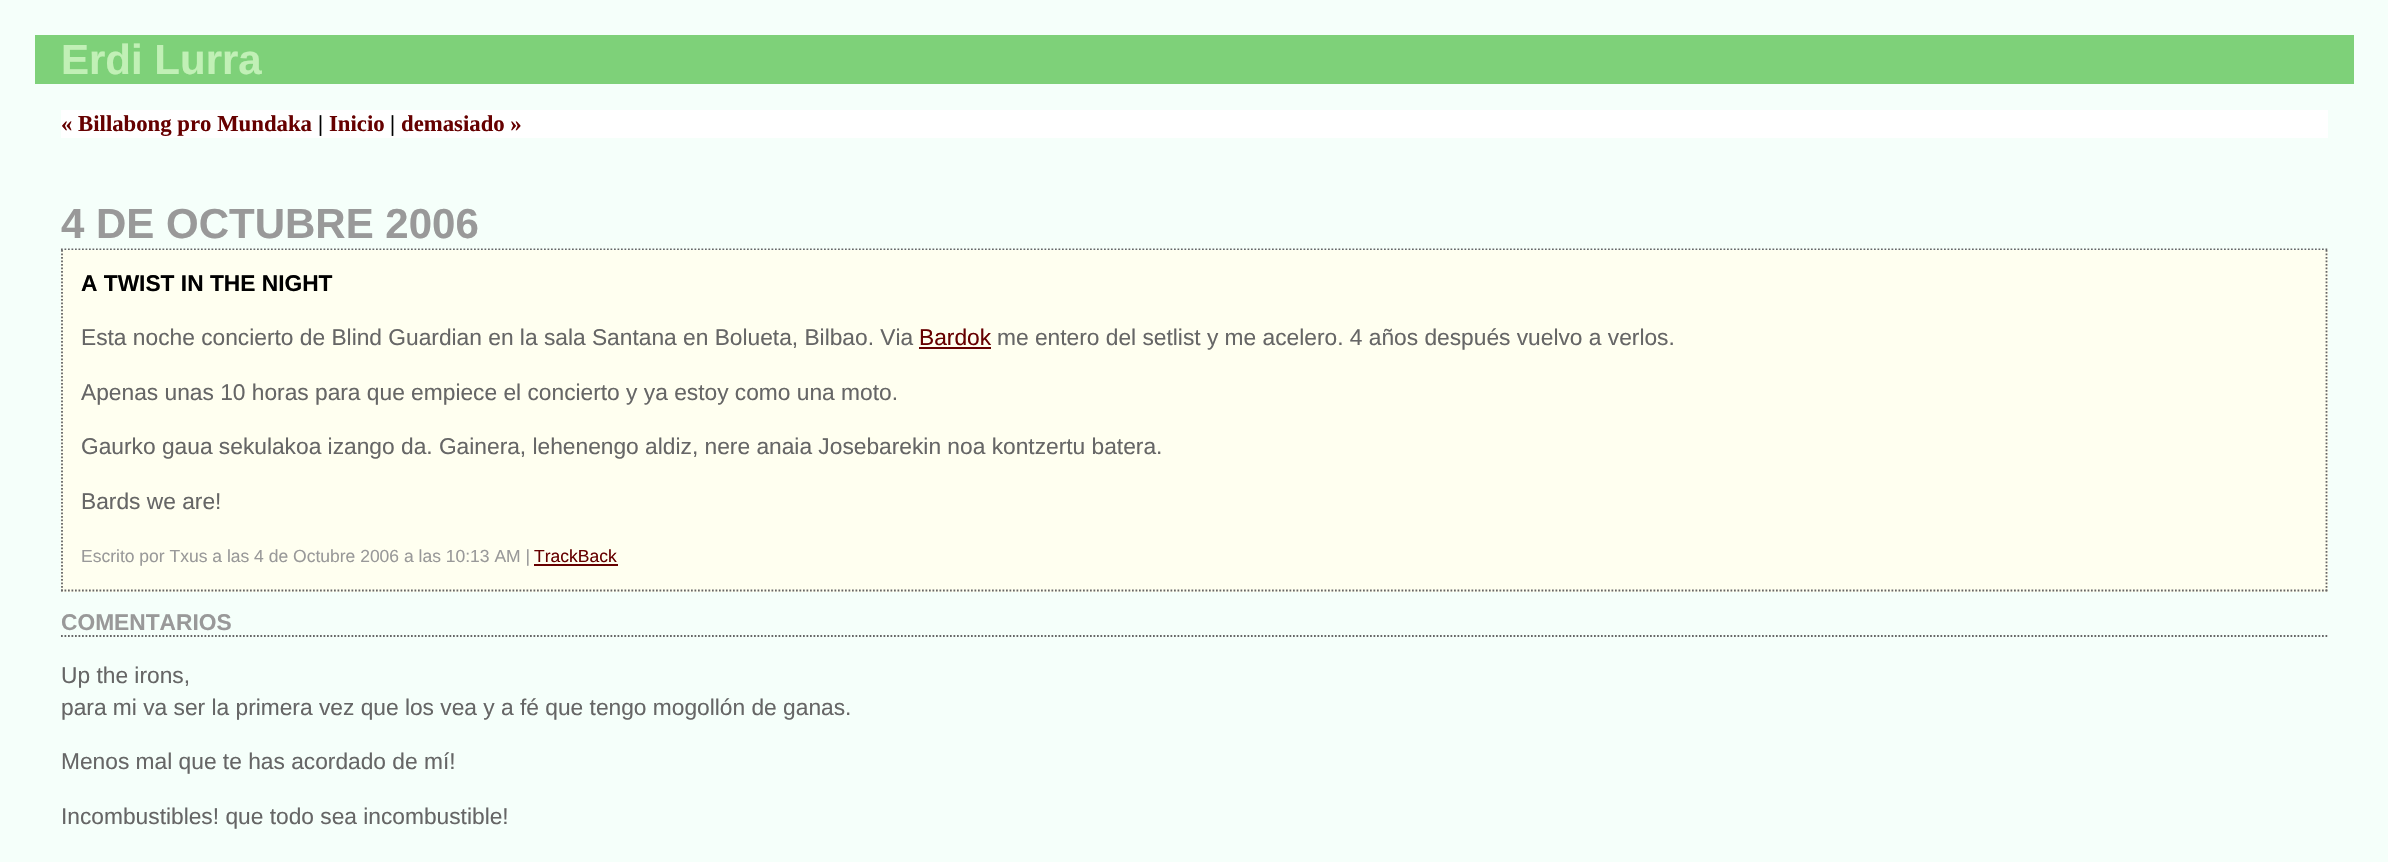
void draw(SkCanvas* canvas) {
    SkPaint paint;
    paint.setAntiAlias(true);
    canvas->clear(0xFFF5FFFA);
    paint.setColor(0xFF7ED179);
    canvas->drawRect(SkRect::MakeXYWH(35, 35, 2319, 49), paint);
    SkFont font1(fontMgr->matchFamilyStyle("Liberation Sans", SkFontStyle::Bold()), 42);
    font1.setSubpixel(true);
    paint.setColor(0xFFC1F0B6);
    canvas->drawString("Erdi Lurra", 61, 74, font1, paint);
    paint.setColor(0xFFFFFFFF);
    canvas->drawRect(SkRect::MakeXYWH(61, 110, 2267, 28), paint);
    SkFont font2(fontMgr->matchFamilyStyle("Liberation Serif", SkFontStyle::Bold()), 22.75f);
    font2.setSubpixel(true);
    paint.setColor(0xFF660000);
    canvas->drawString("« Billabong pro Mundaka", 61, 131, font2, paint);
    paint.setColor(0xFF000000);
    canvas->drawString("|", 318, 131, font2, paint);
    paint.setColor(0xFF660000);
    canvas->drawString("Inicio", 329, 131, font2, paint);
    paint.setColor(0xFF000000);
    canvas->drawString("|", 390, 131, font2, paint);
    paint.setColor(0xFF660000);
    canvas->drawString("demasiado »", 401, 131, font2, paint);
    paint.setStyle(SkPaint::kStroke_Style);
    paint.setStrokeWidth(1.8f);
    paint.setColor(0xFF666666);
    paint.setPathEffect(SkDashPathEffect::Make({{1.75f, 1.75f}}, 0));
    canvas->drawPath(SkPathBuilder().moveTo(61, 249.5f).lineTo(2327.5f, 249.5f).detach(), paint);
    paint.setPathEffect(nullptr);
    paint.setStyle(SkPaint::kFill_Style);
    paint.setColor(0xFF999999);
    canvas->drawString("4 DE OCTUBRE 2006", 61, 238, font1, paint);
    paint.setColor(0xFFFFFFF0);
    canvas->drawRect(SkRect::MakeXYWH(61, 250, 2267, 342), paint);
    paint.setStyle(SkPaint::kStroke_Style);
    paint.setColor(0xFF666666);
    paint.setPathEffect(SkDashPathEffect::Make({{1.75f, 1.75f}}, 0));
    canvas->drawPath(SkPathBuilder().moveTo(2326.5f, 250).lineTo(2326.5f, 591.5f).detach(), paint);
    paint.setPathEffect(nullptr);
    paint.setPathEffect(SkDashPathEffect::Make({{1.75f, 1.75f}}, 0));
    canvas->drawPath(SkPathBuilder().moveTo(61, 590.5f).lineTo(2327.5f, 590.5f).detach(), paint);
    paint.setPathEffect(nullptr);
    paint.setPathEffect(SkDashPathEffect::Make({{1.75f, 1.75f}}, 0));
    canvas->drawPath(SkPathBuilder().moveTo(62, 250).lineTo(62, 591.5f).detach(), paint);
    paint.setPathEffect(nullptr);
    SkFont font3(fontMgr->matchFamilyStyle("Liberation Sans", SkFontStyle::Bold()), 22.75f);
    font3.setSubpixel(true);
    paint.setStyle(SkPaint::kFill_Style);
    paint.setColor(0xFF000000);
    canvas->drawString("A TWIST IN THE NIGHT", 81, 291, font3, paint);
    SkFont font4(fontMgr->matchFamilyStyle("Liberation Sans", SkFontStyle::Normal()), 22.75f);
    font4.setSubpixel(true);
    paint.setColor(0xFF666666);
    canvas->drawString("Esta noche concierto de Blind Guardian en la sala Santana en Bolueta, Bilbao. Via", 81, 345, font4, paint);
    paint.setColor(0xFF660000);
    canvas->drawString("Bardok", 919, 345, font4, paint);
    canvas->drawRect(SkRect::MakeXYWH(919, 347, 72, 2), paint);
    paint.setColor(0xFF666666);
    canvas->drawString("me entero del setlist y me acelero. 4 años después vuelvo a verlos.", 997, 345, font4, paint);
    canvas->drawString("Apenas unas 10 horas para que empiece el concierto y ya estoy como una moto.", 81, 400, font4, paint);
    canvas->drawString("Gaurko gaua sekulakoa izango da. Gainera, lehenengo aldiz, nere anaia Josebarekin noa kontzertu batera.", 81, 454, font4, paint);
    canvas->drawString("Bards we are!", 81, 509, font4, paint);
    SkFont font5(fontMgr->matchFamilyStyle("Liberation Sans", SkFontStyle::Normal()), 17.5f);
    font5.setSubpixel(true);
    paint.setColor(0xFF999999);
    canvas->drawString("Escrito por Txus a las 4 de Octubre 2006 a las 10:13 AM |", 81, 562, font5, paint);
    paint.setColor(0xFF660000);
    canvas->drawString("TrackBack", 534, 562, font5, paint);
    canvas->drawRect(SkRect::MakeXYWH(534, 564, 84, 2), paint);
    paint.setStyle(SkPaint::kStroke_Style);
    paint.setColor(0xFF666666);
    paint.setPathEffect(SkDashPathEffect::Make({{1.75f, 1.75f}}, 0));
    canvas->drawPath(SkPathBuilder().moveTo(61, 636).lineTo(2327.5f, 636).detach(), paint);
    paint.setPathEffect(nullptr);
    paint.setStyle(SkPaint::kFill_Style);
    paint.setColor(0xFF999999);
    canvas->drawString("COMENTARIOS", 61, 630, font3, paint);
    paint.setColor(0xFF666666);
    canvas->drawString("Up the irons,", 61, 683, font4, paint);
    canvas->drawString("para mi va ser la primera vez que los vea y a fé que tengo mogollón de ganas.", 61, 715, font4, paint);
    canvas->drawString("Menos mal que te has acordado de mí!", 61, 769, font4, paint);
    canvas->drawString("Incombustibles! que todo sea incombustible!", 61, 824, font4, paint);
}
